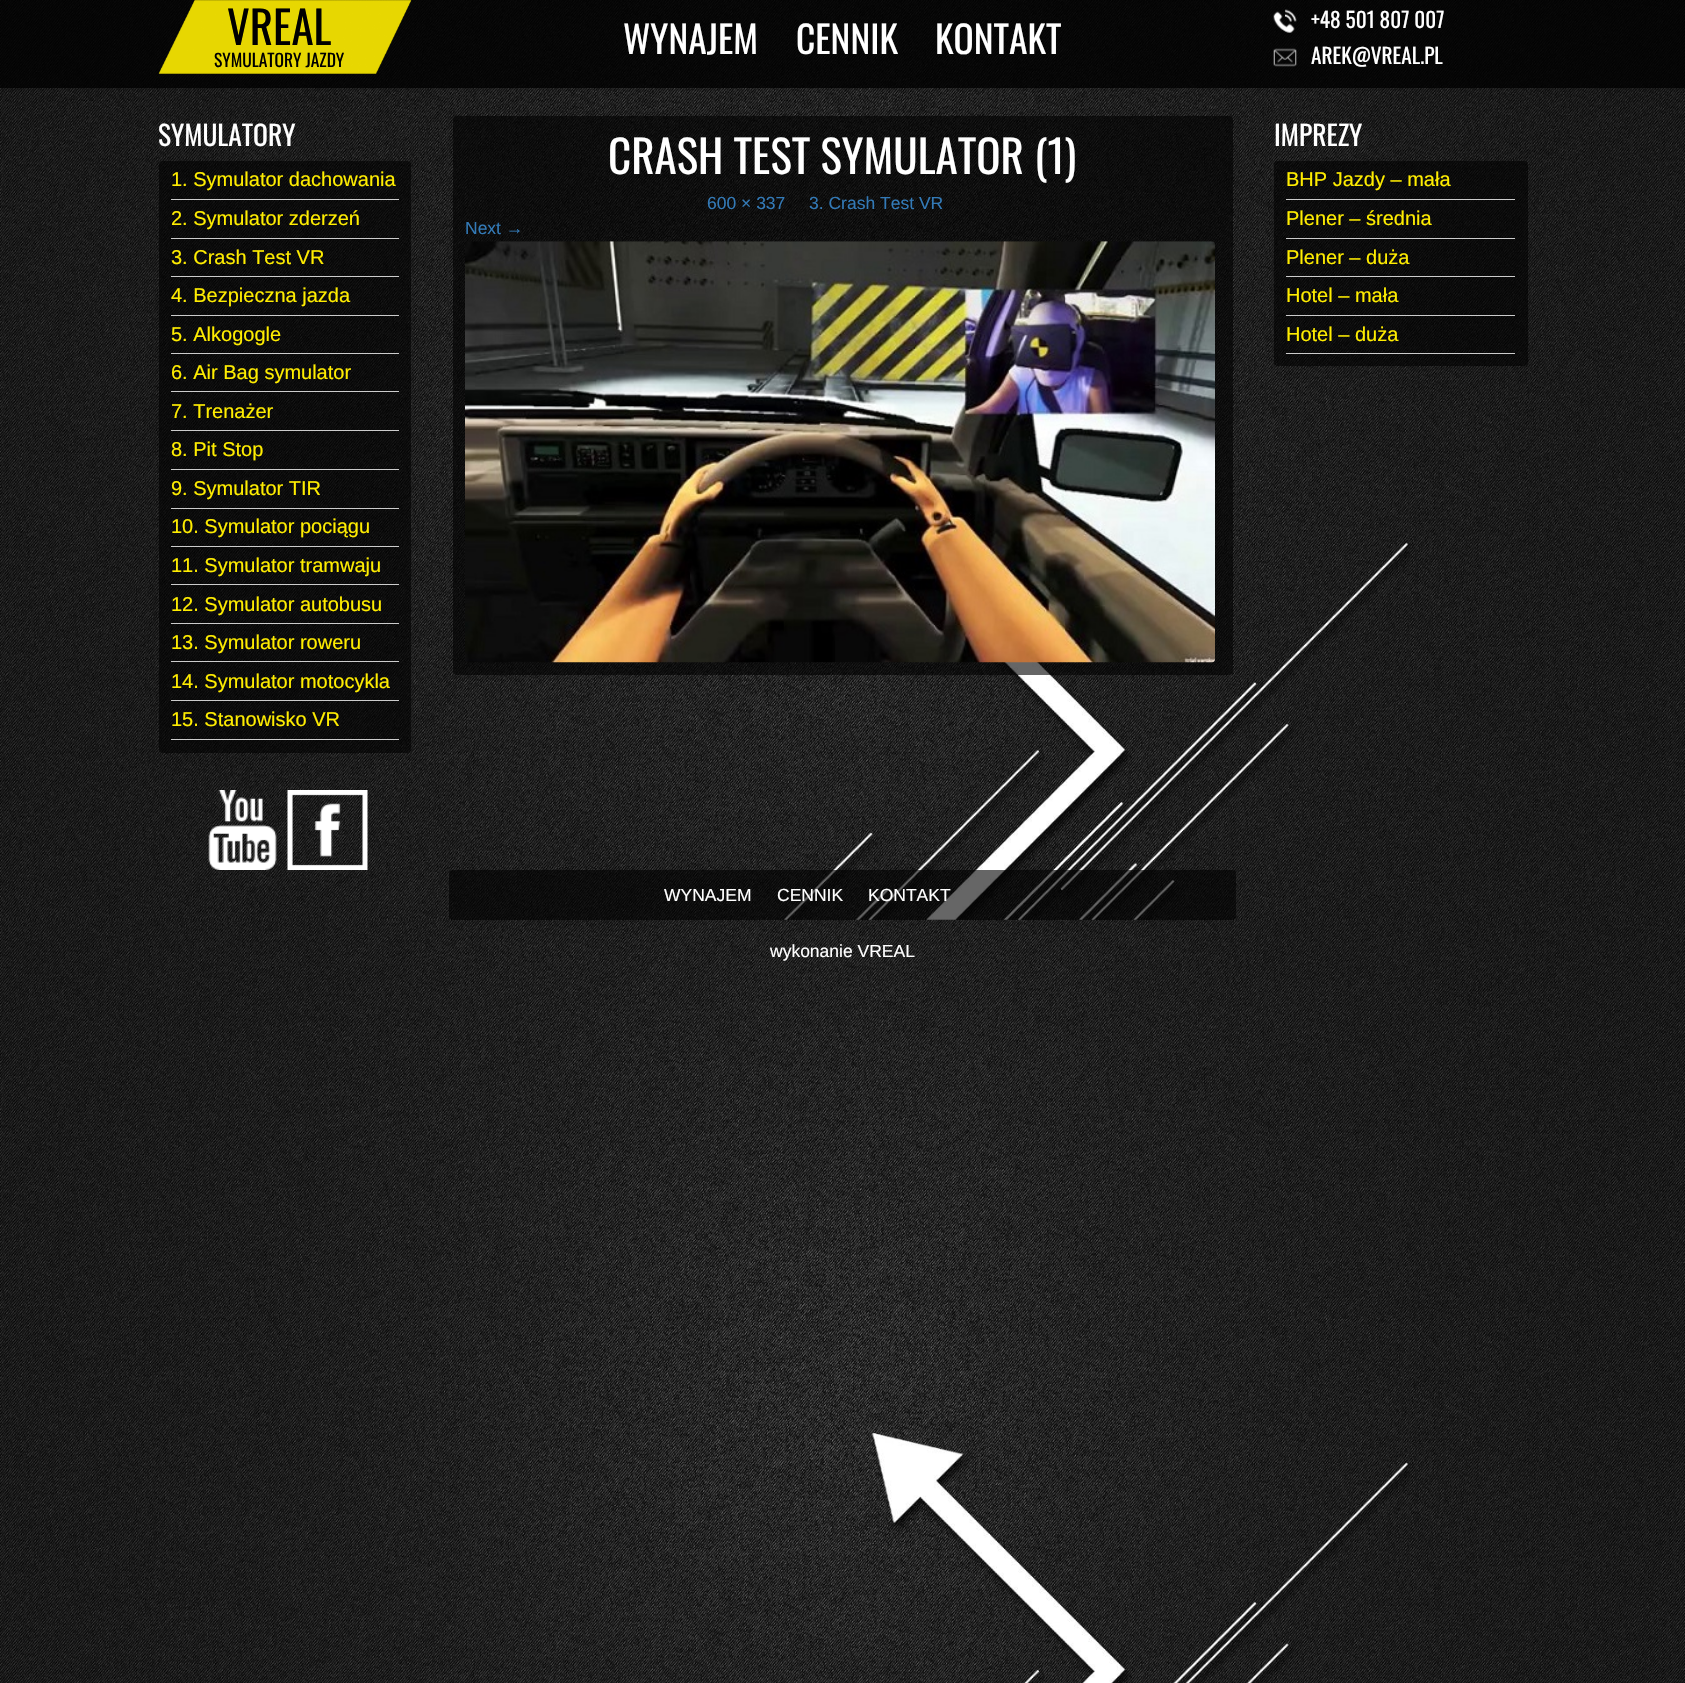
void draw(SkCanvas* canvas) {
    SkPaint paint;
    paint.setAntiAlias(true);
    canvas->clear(0xFFFFFFFF);
    canvas->drawImageRect(SkImages::DeferredFromEncodedData(SkData::MakeFromFileName("img1.png")), SkRect::MakeXYWH(0, 0, 1685, 1683), SkSamplingOptions());
    paint.setColor(0xCC000000);
    canvas->drawRect(SkRect::MakeXYWH(0, 0, 1685, 88), paint);
    canvas->drawImageRect(SkImages::DeferredFromEncodedData(SkData::MakeFromFileName("img2.png")), SkRect::MakeXYWH(158, 0, 254, 74), SkSamplingOptions());
    SkFont font1(fontMgr->matchFamilyStyle("Oswald", SkFontStyle::Normal()), 45);
    font1.setSubpixel(true);
    paint.setColor(0xFF000000);
    canvas->drawString("VREAL", 227, 45, font1, paint);
    SkFont font2(fontMgr->matchFamilyStyle("Oswald", SkFontStyle::Normal()), 17.5f);
    font2.setSubpixel(true);
    canvas->drawString("SYMULATORY JAZDY", 214, 67, font2, paint);
    SkFont font3(fontMgr->matchFamilyStyle("Oswald", SkFontStyle::Normal()), 37.5f);
    font3.setSubpixel(true);
    paint.setColor(0xFFFFFFFF);
    canvas->drawString("WYNAJEM", 623, 54, font3, paint);
    canvas->drawString("CENNIK", 796, 54, font3, paint);
    canvas->drawString("KONTAKT", 935, 54, font3, paint);
    canvas->drawImageRect(SkImages::DeferredFromEncodedData(SkData::MakeFromFileName("img3.png")), SkRect::MakeXYWH(1273, 9, 24, 24), SkSamplingOptions());
    SkFont font4(fontMgr->matchFamilyStyle("Oswald", SkFontStyle::Normal()), 21.25f);
    font4.setSubpixel(true);
    canvas->drawString("+48 501 807 007", 1311, 28, font4, paint);
    canvas->drawImageRect(SkImages::DeferredFromEncodedData(SkData::MakeFromFileName("img4.png")), SkRect::MakeXYWH(1273, 48, 24, 19), SkSamplingOptions());
    canvas->drawString("AREK@VREAL.PL", 1311, 64, font4, paint);
    SkFont font5(fontMgr->matchFamilyStyle("Oswald", SkFontStyle::Normal()), 27.5f);
    font5.setSubpixel(true);
    canvas->drawString("SYMULATORY", 158, 146, font5, paint);
    paint.setColor(0x99000000);
    canvas->drawRoundRect(SkRect::MakeXYWH(159, 161, 252, 592), 4, 4, paint);
    paint.setColor(0xFFCCCCCC);
    canvas->drawRect(SkRect::MakeXYWH(171, 199, 228, 1), paint);
    SkFont font6(fontMgr->matchFamilyStyle("Liberation Sans", SkFontStyle::Normal()), 20);
    font6.setSubpixel(true);
    paint.setColor(0xFFFFED00);
    canvas->drawString("1. Symulator dachowania", 171, 186, font6, paint);
    paint.setColor(0xFFCCCCCC);
    canvas->drawRect(SkRect::MakeXYWH(171, 238, 228, 1), paint);
    paint.setColor(0xFFFFED00);
    canvas->drawString("2. Symulator zderzeń", 171, 225, font6, paint);
    paint.setColor(0xFFCCCCCC);
    canvas->drawRect(SkRect::MakeXYWH(171, 276, 228, 1), paint);
    paint.setColor(0xFFFFED00);
    canvas->drawString("3. Crash Test VR", 171, 264, font6, paint);
    paint.setColor(0xFFCCCCCC);
    canvas->drawRect(SkRect::MakeXYWH(171, 315, 228, 1), paint);
    paint.setColor(0xFFFFED00);
    canvas->drawString("4. Bezpieczna jazda", 171, 302, font6, paint);
    paint.setColor(0xFFCCCCCC);
    canvas->drawRect(SkRect::MakeXYWH(171, 353, 228, 1), paint);
    paint.setColor(0xFFFFED00);
    canvas->drawString("5. Alkogogle", 171, 341, font6, paint);
    paint.setColor(0xFFCCCCCC);
    canvas->drawRect(SkRect::MakeXYWH(171, 391, 228, 1), paint);
    paint.setColor(0xFFFFED00);
    canvas->drawString("6. Air Bag symulator", 171, 379, font6, paint);
    paint.setColor(0xFFCCCCCC);
    canvas->drawRect(SkRect::MakeXYWH(171, 430, 228, 1), paint);
    paint.setColor(0xFFFFED00);
    canvas->drawString("7. Trenażer", 171, 418, font6, paint);
    paint.setColor(0xFFCCCCCC);
    canvas->drawRect(SkRect::MakeXYWH(171, 469, 228, 1), paint);
    paint.setColor(0xFFFFED00);
    canvas->drawString("8. Pit Stop", 171, 456, font6, paint);
    paint.setColor(0xFFCCCCCC);
    canvas->drawRect(SkRect::MakeXYWH(171, 508, 228, 1), paint);
    paint.setColor(0xFFFFED00);
    canvas->drawString("9. Symulator TIR", 171, 495, font6, paint);
    paint.setColor(0xFFCCCCCC);
    canvas->drawRect(SkRect::MakeXYWH(171, 546, 228, 1), paint);
    paint.setColor(0xFFFFED00);
    canvas->drawString("10. Symulator pociągu", 171, 533, font6, paint);
    paint.setColor(0xFFCCCCCC);
    canvas->drawRect(SkRect::MakeXYWH(171, 584, 228, 1), paint);
    paint.setColor(0xFFFFED00);
    canvas->drawString("11. Symulator tramwaju", 171, 572, font6, paint);
    paint.setColor(0xFFCCCCCC);
    canvas->drawRect(SkRect::MakeXYWH(171, 623, 228, 1), paint);
    paint.setColor(0xFFFFED00);
    canvas->drawString("12. Symulator autobusu", 171, 611, font6, paint);
    paint.setColor(0xFFCCCCCC);
    canvas->drawRect(SkRect::MakeXYWH(171, 661, 228, 1), paint);
    paint.setColor(0xFFFFED00);
    canvas->drawString("13. Symulator roweru", 171, 649, font6, paint);
    paint.setColor(0xFFCCCCCC);
    canvas->drawRect(SkRect::MakeXYWH(171, 700, 228, 1), paint);
    paint.setColor(0xFFFFED00);
    canvas->drawString("14. Symulator motocykla", 171, 688, font6, paint);
    paint.setColor(0xFFCCCCCC);
    canvas->drawRect(SkRect::MakeXYWH(171, 739, 228, 1), paint);
    paint.setColor(0xFFFFED00);
    canvas->drawString("15. Stanowisko VR", 171, 726, font6, paint);
    canvas->drawImageRect(SkImages::DeferredFromEncodedData(SkData::MakeFromFileName("img5.png")), SkRect::MakeXYWH(208, 790, 69, 80), SkSamplingOptions());
    canvas->drawImageRect(SkImages::DeferredFromEncodedData(SkData::MakeFromFileName("img6.png")), SkRect::MakeXYWH(287, 790, 81, 80), SkSamplingOptions());
    paint.setColor(0x99000000);
    canvas->drawRoundRect(SkRect::MakeXYWH(453, 116, 780, 559), 4, 4, paint);
    paint.setColor(0xFFFFFFFF);
    canvas->drawString("CRASH TEST SYMULATOR (1)", 608, 174, font1, paint);
    SkFont font7(fontMgr->matchFamilyStyle("Liberation Sans", SkFontStyle::Normal()), 17.5f);
    font7.setSubpixel(true);
    paint.setColor(0xFF337AB7);
    canvas->drawString("600 × 337", 707, 209, font7, paint);
    canvas->drawString("3. Crash Test VR", 809, 209, font7, paint);
    canvas->drawString("Next →", 465, 234, font7, paint);
    canvas->drawImageRect(SkImages::DeferredFromEncodedData(SkData::MakeFromFileName("img7.png")), SkRect::MakeXYWH(465, 241, 750, 422), SkSamplingOptions());
    paint.setColor(0xFFFFFFFF);
    canvas->drawString("IMPREZY", 1274, 146, font5, paint);
    paint.setColor(0x99000000);
    canvas->drawRoundRect(SkRect::MakeXYWH(1274, 161, 254, 205), 4, 4, paint);
    paint.setColor(0xFFCCCCCC);
    canvas->drawRect(SkRect::MakeXYWH(1286, 199, 229, 1), paint);
    paint.setColor(0xFFFFED00);
    canvas->drawString("BHP Jazdy – mała", 1286, 186, font6, paint);
    paint.setColor(0xFFCCCCCC);
    canvas->drawRect(SkRect::MakeXYWH(1286, 238, 229, 1), paint);
    paint.setColor(0xFFFFED00);
    canvas->drawString("Plener – średnia", 1286, 225, font6, paint);
    paint.setColor(0xFFCCCCCC);
    canvas->drawRect(SkRect::MakeXYWH(1286, 276, 229, 1), paint);
    paint.setColor(0xFFFFED00);
    canvas->drawString("Plener – duża", 1286, 264, font6, paint);
    paint.setColor(0xFFCCCCCC);
    canvas->drawRect(SkRect::MakeXYWH(1286, 315, 229, 1), paint);
    paint.setColor(0xFFFFED00);
    canvas->drawString("Hotel – mała", 1286, 302, font6, paint);
    paint.setColor(0xFFCCCCCC);
    canvas->drawRect(SkRect::MakeXYWH(1286, 353, 229, 1), paint);
    paint.setColor(0xFFFFED00);
    canvas->drawString("Hotel – duża", 1286, 341, font6, paint);
    paint.setColor(0x99000000);
    canvas->drawRoundRect(SkRect::MakeXYWH(449, 870, 787, 50), 4, 4, paint);
    paint.setColor(0xFFFFFFFF);
    canvas->drawString("WYNAJEM", 664, 901, font7, paint);
    canvas->drawString("CENNIK", 777, 901, font7, paint);
    canvas->drawString("KONTAKT", 868, 901, font7, paint);
    canvas->drawString("wykonanie VREAL", 770, 957, font7, paint);
}
